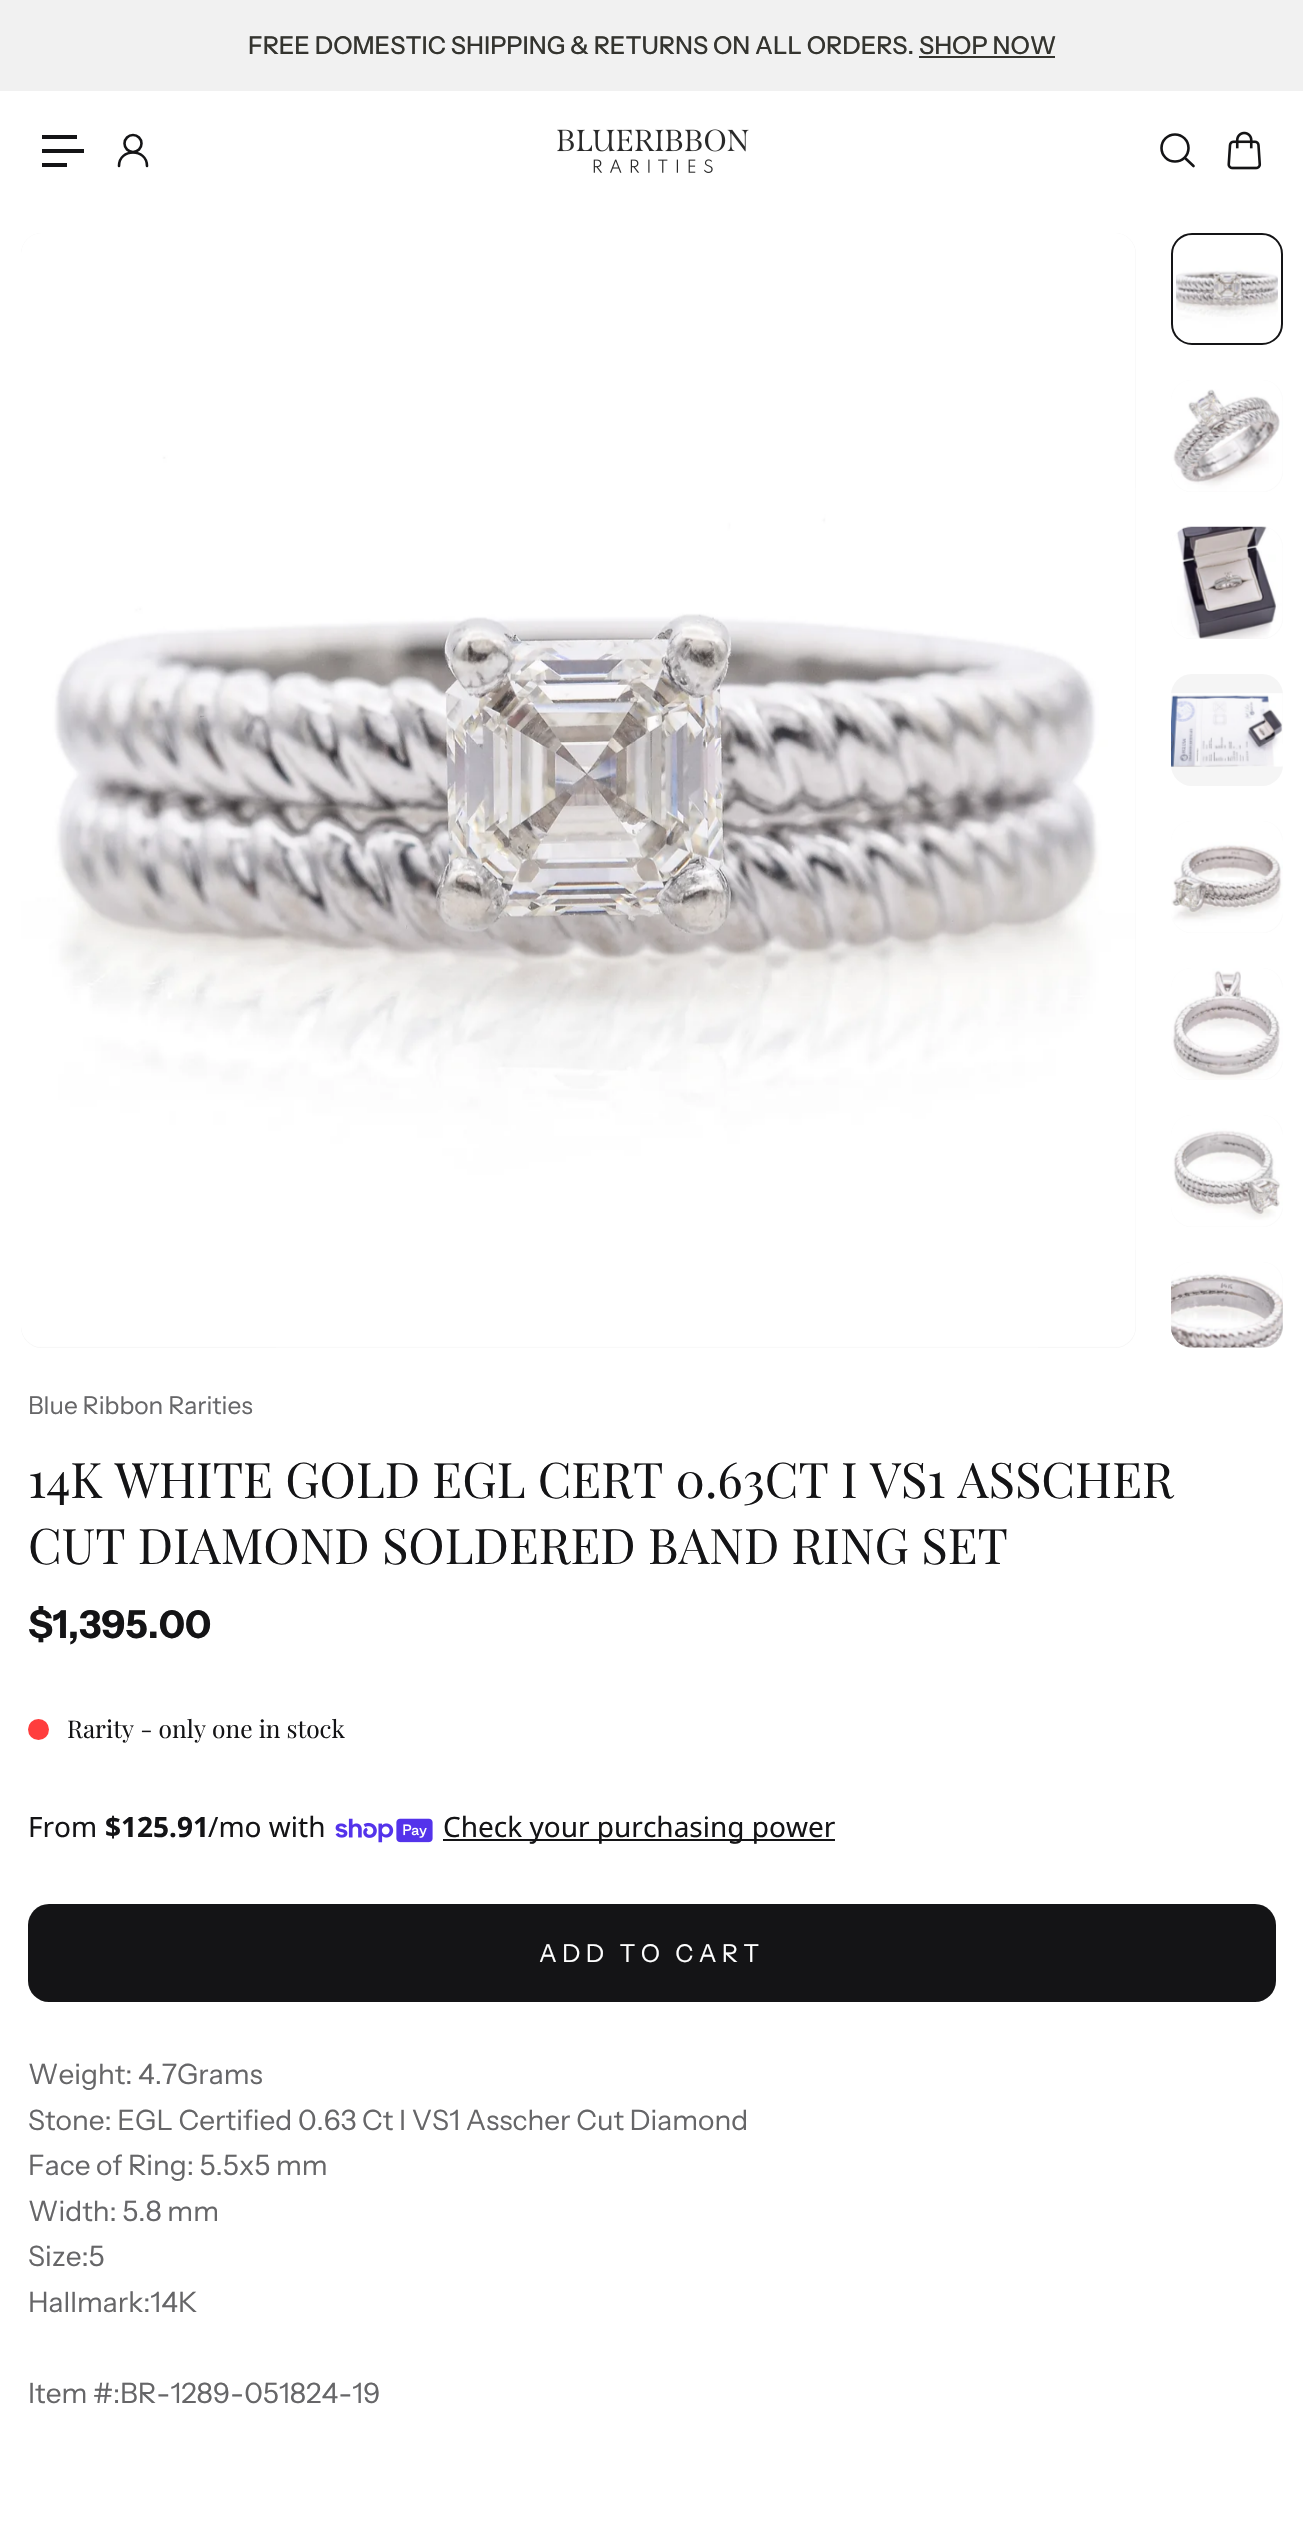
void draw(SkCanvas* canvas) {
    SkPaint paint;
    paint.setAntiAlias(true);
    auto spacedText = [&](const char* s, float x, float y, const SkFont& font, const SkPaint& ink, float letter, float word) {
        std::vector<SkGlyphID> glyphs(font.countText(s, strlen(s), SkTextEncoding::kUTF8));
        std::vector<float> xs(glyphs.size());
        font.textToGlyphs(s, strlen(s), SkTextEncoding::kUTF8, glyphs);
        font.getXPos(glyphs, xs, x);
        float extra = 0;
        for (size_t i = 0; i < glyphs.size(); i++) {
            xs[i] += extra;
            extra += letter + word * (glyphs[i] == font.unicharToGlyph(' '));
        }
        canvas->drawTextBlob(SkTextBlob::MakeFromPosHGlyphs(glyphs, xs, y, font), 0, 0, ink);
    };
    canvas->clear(0xFFFFFFFF);
    paint.setColor(0xFFF1F1F1);
    canvas->drawRect(SkRect::MakeXYWH(0, 0, 1303, 91), paint);
    SkFont font1(fontMgr->matchFamilyStyle("Instrument Sans", SkFontStyle(500, SkFontStyle::kNormal_Width, SkFontStyle::kUpright_Slant)), 24.5f);
    font1.setSubpixel(true);
    paint.setColor(0xFF34342F);
    canvas->drawString("FREE DOMESTIC SHIPPING & RETURNS ON ALL ORDERS. SHOP NOW", 248, 54, font1, paint);
    canvas->drawRect(SkRect::MakeXYWH(919, 56, 136, 2), paint);
    paint.setColor(0xFF141416);
    canvas->drawRect(SkRect::MakeXYWH(42, 135, 35, 4), paint);
    canvas->drawRect(SkRect::MakeXYWH(42, 149, 42, 4), paint);
    canvas->drawRect(SkRect::MakeXYWH(42, 163, 25, 4), paint);
    paint.setStyle(SkPaint::kStroke_Style);
    paint.setStrokeWidth(2.6f);
    canvas->drawCircle(133, 143.5f, 8.5f, paint);
    paint.setStrokeCap(SkPaint::kRound_Cap);
    paint.setStrokeJoin(SkPaint::kRound_Join);
    canvas->drawPath(SkPathBuilder().moveTo(147, 166).cubicTo(147, 148, 119, 148, 119, 166).detach(), paint);
    canvas->drawImageRect(SkImages::DeferredFromEncodedData(SkData::MakeFromFileName("img1.png")), SkRect::MakeXYWH(557, 129, 192, 44), SkSamplingOptions());
    paint.setStrokeCap(SkPaint::kButt_Cap);
    paint.setStrokeJoin(SkPaint::kMiter_Join);
    canvas->drawCircle(1175, 148, 13.5f, paint);
    paint.setStrokeCap(SkPaint::kRound_Cap);
    paint.setStrokeJoin(SkPaint::kRound_Join);
    canvas->drawPath(SkPathBuilder().moveTo(1185, 158).lineTo(1193.5f, 166).detach(), paint);
    canvas->drawImageRect(SkImages::DeferredFromEncodedData(SkData::MakeFromFileName("img2.png")), SkRect::MakeXYWH(1227, 131, 35, 39), SkSamplingOptions());
    paint.setStyle(SkPaint::kFill_Style);
    paint.setColor(0xFFF5F5F5);
    canvas->drawRoundRect(SkRect::MakeXYWH(21, 233, 1115, 1115), 21, 21, paint);
    canvas->drawImageRect(SkImages::DeferredFromEncodedData(SkData::MakeFromFileName("img3.png")), SkRect::MakeXYWH(21, 233, 1115, 1115), SkSamplingOptions());
    canvas->drawImageRect(SkImages::DeferredFromEncodedData(SkData::MakeFromFileName("img4.png")), SkRect::MakeXYWH(1171, 233, 112, 112), SkSamplingOptions());
    paint.setStyle(SkPaint::kStroke_Style);
    paint.setStrokeWidth(5);
    paint.setStrokeCap(SkPaint::kButt_Cap);
    paint.setStrokeJoin(SkPaint::kMiter_Join);
    paint.setColor(0xFFFFFFFF);
    canvas->drawRoundRect(SkRect::MakeXYWH(1173.5f, 235.5f, 107, 107), 18.5f, 18.5f, paint);
    paint.setStrokeWidth(2);
    paint.setColor(0xFF141416);
    canvas->drawRoundRect(SkRect::MakeXYWH(1172, 234, 110, 110), 20, 20, paint);
    paint.setStyle(SkPaint::kFill_Style);
    paint.setColor(0xFFF5F5F5);
    canvas->drawRoundRect(SkRect::MakeXYWH(1171, 380, 112, 112), 21, 21, paint);
    canvas->drawImageRect(SkImages::DeferredFromEncodedData(SkData::MakeFromFileName("img5.png")), SkRect::MakeXYWH(1171, 380, 112, 112), SkSamplingOptions());
    canvas->drawRoundRect(SkRect::MakeXYWH(1171, 527, 112, 112), 21, 21, paint);
    canvas->drawImageRect(SkImages::DeferredFromEncodedData(SkData::MakeFromFileName("img6.png")), SkRect::MakeXYWH(1171, 526, 112, 113), SkSamplingOptions());
    canvas->drawRoundRect(SkRect::MakeXYWH(1171, 674, 112, 112), 21, 21, paint);
    canvas->drawImageRect(SkImages::DeferredFromEncodedData(SkData::MakeFromFileName("img7.png")), SkRect::MakeXYWH(1171, 693, 112, 74), SkSamplingOptions());
    canvas->drawRoundRect(SkRect::MakeXYWH(1171, 821, 112, 112), 21, 21, paint);
    canvas->drawImageRect(SkImages::DeferredFromEncodedData(SkData::MakeFromFileName("img8.png")), SkRect::MakeXYWH(1171, 821, 112, 112), SkSamplingOptions());
    canvas->drawRoundRect(SkRect::MakeXYWH(1171, 968, 112, 112), 21, 21, paint);
    canvas->drawImageRect(SkImages::DeferredFromEncodedData(SkData::MakeFromFileName("img9.png")), SkRect::MakeXYWH(1171, 968, 112, 112), SkSamplingOptions());
    canvas->drawRoundRect(SkRect::MakeXYWH(1171, 1115, 112, 112), 21, 21, paint);
    canvas->drawImageRect(SkImages::DeferredFromEncodedData(SkData::MakeFromFileName("img10.png")), SkRect::MakeXYWH(1171, 1115, 112, 112), SkSamplingOptions());
    canvas->drawRoundRect(SkRect::MakeXYWH(1171, 1262, 112, 86), 21, 21, paint);
    canvas->drawImageRect(SkImages::DeferredFromEncodedData(SkData::MakeFromFileName("img11.png")), SkRect::MakeXYWH(1171, 1262, 112, 86), SkSamplingOptions());
    SkFont font2(fontMgr->matchFamilyStyle("Instrument Sans", SkFontStyle::Normal()), 24.5f);
    font2.setSubpixel(true);
    paint.setColor(0xFF666668);
    canvas->drawString("Blue Ribbon Rarities", 28, 1414, font2, paint);
    SkFont font3(fontMgr->matchFamilyStyle("Playfair Display", SkFontStyle::Normal()), 49);
    font3.setSubpixel(true);
    paint.setColor(0xFF141416);
    canvas->drawString("14K WHITE GOLD EGL CERT 0.63CT I VS1 ASSCHER", 28, 1498, font3, paint);
    canvas->drawString("CUT DIAMOND SOLDERED BAND RING SET", 28, 1564, font3, paint);
    SkFont font4(fontMgr->matchFamilyStyle("Instrument Sans", SkFontStyle::Bold()), 38.5f);
    font4.setSubpixel(true);
    canvas->drawString("$1,395.00", 28, 1638, font4, paint);
    paint.setColor(0xFFFF3D3D);
    canvas->drawCircle(38.5f, 1729.5f, 10.5f, paint);
    SkFont font5(fontMgr->matchFamilyStyle("Playfair Display", SkFontStyle::Normal()), 24.5f);
    font5.setSubpixel(true);
    paint.setColor(0xFF141416);
    canvas->drawString("Rarity - only one in stock", 67, 1738, font5, paint);
    SkFont font6(fontMgr->matchFamilyStyle("Noto Sans", SkFontStyle::Normal()), 28);
    font6.setSubpixel(true);
    canvas->drawString("From", 28, 1837, font6, paint);
    SkFont font7(fontMgr->matchFamilyStyle("Noto Sans", SkFontStyle::Bold()), 28);
    font7.setSubpixel(true);
    canvas->drawString("$125.91", 105, 1837, font7, paint);
    canvas->drawString("/mo with", 208, 1837, font6, paint);
    canvas->drawImageRect(SkImages::DeferredFromEncodedData(SkData::MakeFromFileName("img12.png")), SkRect::MakeXYWH(335, 1818, 98, 25), SkSamplingOptions());
    canvas->drawRect(SkRect::MakeXYWH(443, 1839, 392, 2), paint);
    canvas->drawString("Check your purchasing power", 443, 1837, font6, paint);
    canvas->drawRoundRect(SkRect::MakeXYWH(28, 1904, 1248, 98), 21, 21, paint);
    paint.setColor(0xFFFFFFFF);
    spacedText("ADD TO CART", 539, 1962, font2, paint, 5.25f, 0);
    SkFont font8(fontMgr->matchFamilyStyle("Instrument Sans", SkFontStyle::Normal()), 28);
    font8.setSubpixel(true);
    paint.setColor(0xFF666668);
    canvas->drawString("Weight: 4.7Grams", 28, 2084, font8, paint);
    canvas->drawString("Stone: EGL Certified 0.63 Ct I VS1 Asscher Cut Diamond", 28, 2130, font8, paint);
    canvas->drawString("Face of Ring: 5.5x5 mm", 28, 2175, font8, paint);
    canvas->drawString("Width: 5.8 mm", 28, 2221, font8, paint);
    canvas->drawString("Size:5", 28, 2266, font8, paint);
    canvas->drawString("Hallmark:14K", 28, 2312, font8, paint);
    canvas->drawString("Item #:BR-1289-051824-19", 28, 2403, font8, paint);
}
